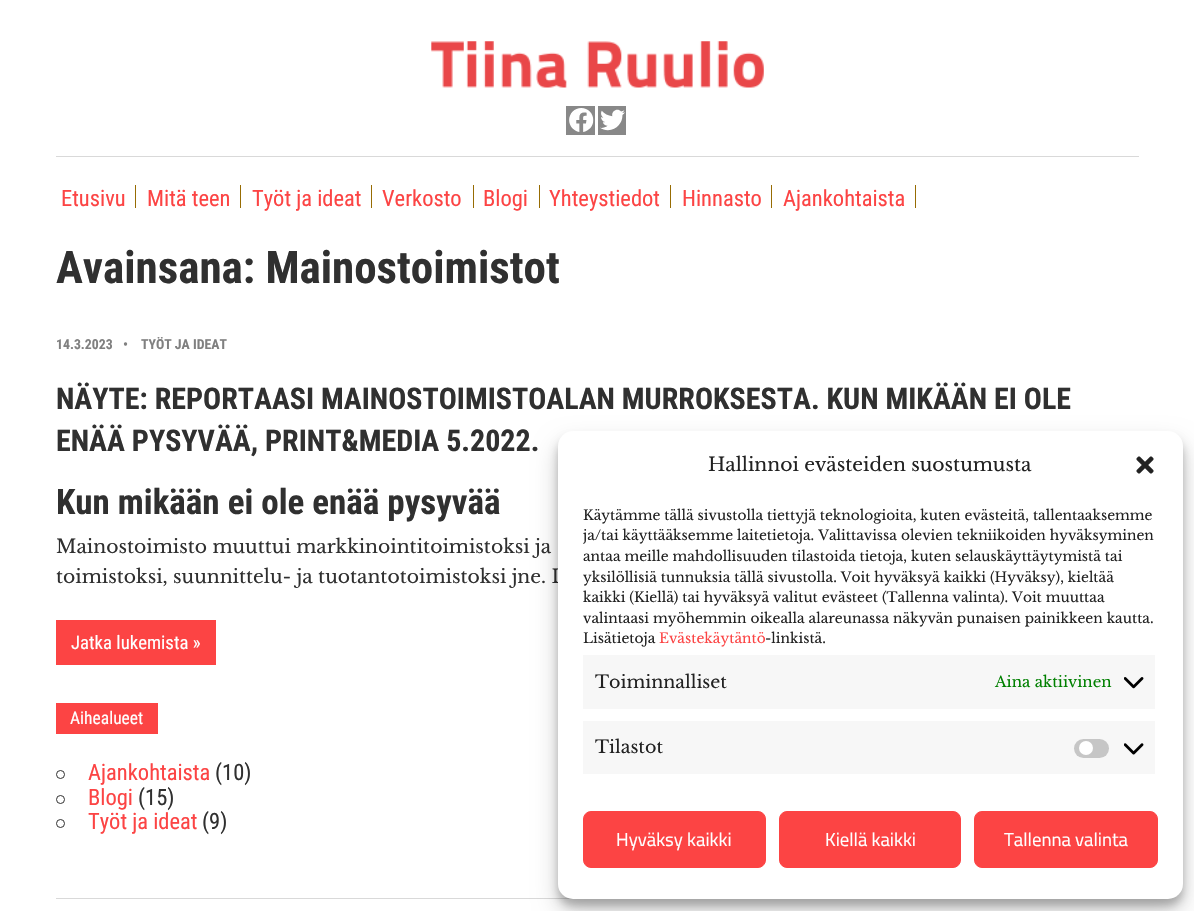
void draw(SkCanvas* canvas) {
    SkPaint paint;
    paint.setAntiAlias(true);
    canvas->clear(0xFFFFFFFF);
    canvas->drawImageRect(SkImages::DeferredFromEncodedData(SkData::MakeFromFileName("img1.png")), SkRect::MakeXYWH(431, 41, 333, 47), SkSamplingOptions());
    paint.setColor(0xFF888888);
    canvas->drawRect(SkRect::MakeXYWH(566, 106, 29, 29), paint);
    canvas->drawImageRect(SkImages::DeferredFromEncodedData(SkData::MakeFromFileName("img2.png")), SkRect::MakeXYWH(569, 108, 25, 24), SkSamplingOptions());
    canvas->drawRect(SkRect::MakeXYWH(598, 106, 28, 29), paint);
    canvas->drawImageRect(SkImages::DeferredFromEncodedData(SkData::MakeFromFileName("img3.png")), SkRect::MakeXYWH(600, 109, 25, 22), SkSamplingOptions());
    paint.setColor(0xFFD9D9D9);
    canvas->drawRect(SkRect::MakeXYWH(56, 156, 1083, 1), paint);
    paint.setColor(0xFF976C03);
    canvas->drawRect(SkRect::MakeXYWH(135, 185, 1, 23), paint);
    SkFont font1(fontMgr->matchFamilyStyle("Roboto Condensed", SkFontStyle::Normal()), 22.5f);
    font1.setSubpixel(true);
    paint.setColor(0xFFFC4444);
    canvas->drawString("Etusivu", 61, 206, font1, paint);
    paint.setColor(0xFF976C03);
    canvas->drawRect(SkRect::MakeXYWH(240, 185, 1, 23), paint);
    paint.setColor(0xFFFC4444);
    canvas->drawString("Mitä teen", 147, 206, font1, paint);
    paint.setColor(0xFF976C03);
    canvas->drawRect(SkRect::MakeXYWH(371, 185, 1, 23), paint);
    paint.setColor(0xFFFC4444);
    canvas->drawString("Työt ja ideat", 252, 206, font1, paint);
    paint.setColor(0xFF976C03);
    canvas->drawRect(SkRect::MakeXYWH(473, 185, 1, 23), paint);
    paint.setColor(0xFFFC4444);
    canvas->drawString("Verkosto", 382, 206, font1, paint);
    paint.setColor(0xFF976C03);
    canvas->drawRect(SkRect::MakeXYWH(539, 185, 1, 23), paint);
    paint.setColor(0xFFFC4444);
    canvas->drawString("Blogi", 483, 206, font1, paint);
    paint.setColor(0xFF976C03);
    canvas->drawRect(SkRect::MakeXYWH(670, 185, 1, 23), paint);
    paint.setColor(0xFFFC4444);
    canvas->drawString("Yhteystiedot", 549, 206, font1, paint);
    paint.setColor(0xFF976C03);
    canvas->drawRect(SkRect::MakeXYWH(771, 185, 1, 23), paint);
    paint.setColor(0xFFFC4444);
    canvas->drawString("Hinnasto", 682, 206, font1, paint);
    paint.setColor(0xFF976C03);
    canvas->drawRect(SkRect::MakeXYWH(915, 185, 1, 23), paint);
    paint.setColor(0xFFFC4444);
    canvas->drawString("Ajankohtaista", 783, 206, font1, paint);
    SkFont font2(fontMgr->matchFamilyStyle("Roboto Condensed", SkFontStyle::Bold()), 45);
    font2.setSubpixel(true);
    paint.setColor(0xFF303030);
    canvas->drawString("Avainsana: Mainostoimistot", 56, 283, font2, paint);
    SkFont font3(fontMgr->matchFamilyStyle("Roboto Condensed", SkFontStyle::Bold()), 13.75f);
    font3.setSubpixel(true);
    paint.setColor(0xFF808080);
    canvas->drawString("14.3.2023", 56, 349, font3, paint);
    canvas->drawString("•", 123, 349, font3, paint);
    canvas->drawString("TYÖT JA IDEAT", 141, 349, font3, paint);
    SkFont font4(fontMgr->matchFamilyStyle("Roboto Condensed", SkFontStyle::Bold()), 30);
    font4.setSubpixel(true);
    paint.setColor(0xFF303030);
    canvas->drawString("NÄYTE: REPORTAASI MAINOSTOIMISTOALAN MURROKSESTA. KUN MIKÄÄN EI OLE", 56, 409, font4, paint);
    canvas->drawString("ENÄÄ PYSYVÄÄ, PRINT&MEDIA 5.2022.", 56, 451, font4, paint);
    SkFont font5(fontMgr->matchFamilyStyle("Roboto Condensed", SkFontStyle::Bold()), 35);
    font5.setSubpixel(true);
    canvas->drawString("Kun mikään ei ole enää pysyvää", 56, 514, font5, paint);
    SkFont font6(fontMgr->matchFamilyStyle("Libre Baskerville", SkFontStyle::Normal()), 18.75f);
    font6.setSubpixel(true);
    canvas->drawString("Mainostoimisto muuttui markkinointitoimistoksi ja", 56, 553, font6, paint);
    canvas->drawString("toimistoksi, suunnittelu- ja tuotantotoimistoksi jne. L", 56, 583, font6, paint);
    paint.setColor(0xFFFC4444);
    canvas->drawRect(SkRect::MakeXYWH(56, 620, 160, 45), paint);
    SkFont font7(fontMgr->matchFamilyStyle("Roboto Condensed", SkFontStyle::Normal()), 18.75f);
    font7.setSubpixel(true);
    paint.setColor(0xFFFFFFFF);
    canvas->drawString("Jatka lukemista »", 71, 649, font7, paint);
    paint.setColor(0xFFFC4444);
    canvas->drawRect(SkRect::MakeXYWH(56, 703, 102, 31), paint);
    SkFont font8(fontMgr->matchFamilyStyle("Roboto Condensed", SkFontStyle::Normal()), 17.5f);
    font8.setSubpixel(true);
    paint.setColor(0xFFFFFFFF);
    canvas->drawString("Aihealueet", 70, 724, font8, paint);
    paint.setStyle(SkPaint::kStroke_Style);
    paint.setStrokeWidth(1);
    paint.setColor(0xFF303030);
    canvas->drawCircle(60.5f, 774.5f, 4, paint);
    paint.setStyle(SkPaint::kFill_Style);
    paint.setColor(0xFFFC4444);
    canvas->drawString("Ajankohtaista", 88, 780, font1, paint);
    paint.setColor(0xFF303030);
    canvas->drawString("(10)", 215, 780, font1, paint);
    paint.setStyle(SkPaint::kStroke_Style);
    canvas->drawCircle(60.5f, 799.5f, 4, paint);
    paint.setStyle(SkPaint::kFill_Style);
    paint.setColor(0xFFFC4444);
    canvas->drawString("Blogi", 88, 805, font1, paint);
    paint.setColor(0xFF303030);
    canvas->drawString("(15)", 138, 805, font1, paint);
    paint.setStyle(SkPaint::kStroke_Style);
    canvas->drawCircle(60.5f, 823.5f, 4, paint);
    paint.setStyle(SkPaint::kFill_Style);
    paint.setColor(0xFFFC4444);
    canvas->drawString("Työt ja ideat", 88, 829, font1, paint);
    paint.setColor(0xFF303030);
    canvas->drawString("(9)", 202, 829, font1, paint);
    paint.setColor(0xFFD9D9D9);
    canvas->drawRect(SkRect::MakeXYWH(56, 898, 517, 1), paint);
    paint.setColor(0x3B000000);
    paint.setMaskFilter(SkMaskFilter::MakeBlur(kNormal_SkBlurStyle, 4));
    canvas->drawRoundRect(SkRect::MakeXYWH(558, 439, 625, 467), 15, 15, paint);
    paint.setMaskFilter(nullptr);
    paint.setColor(0x30000000);
    paint.setMaskFilter(SkMaskFilter::MakeBlur(kNormal_SkBlurStyle, 12.5f));
    canvas->drawRoundRect(SkRect::MakeXYWH(558, 444, 625, 467), 15, 15, paint);
    paint.setMaskFilter(nullptr);
    paint.setColor(0xFFFFFFFF);
    canvas->drawRoundRect(SkRect::MakeXYWH(558, 431, 625, 468), 15, 15, paint);
    paint.setColor(0xFF222222);
    canvas->drawString("Hallinnoi evästeiden suostumusta", 708, 471, font6, paint);
    canvas->drawImageRect(SkImages::DeferredFromEncodedData(SkData::MakeFromFileName("img4.png")), SkRect::MakeXYWH(1136, 456, 18, 18), SkSamplingOptions());
    SkFont font9(fontMgr->matchFamilyStyle("Libre Baskerville", SkFontStyle::Normal()), 13.75f);
    font9.setSubpixel(true);
    canvas->drawString("Käytämme tällä sivustolla tiettyjä teknologioita, kuten evästeitä, tallentaaksemme", 583, 520, font9, paint);
    canvas->save();
    canvas->clipRect(SkRect::MakeXYWH(583, 505, 575, 281));
    canvas->drawString("ja/tai käyttääksemme laitetietoja. Valittavissa olevien tekniikoiden hyväksyminen", 583, 540, font9, paint);
    canvas->restore();
    canvas->drawString("antaa meille mahdollisuuden tilastoida tietoja, kuten selauskäyttäytymistä tai", 583, 561, font9, paint);
    canvas->drawString("yksilöllisiä tunnuksia tällä sivustolla. Voit hyväksyä kaikki (Hyväksy), kieltää", 583, 582, font9, paint);
    canvas->drawString("kaikki (Kiellä) tai hyväksyä valitut evästeet (Tallenna valinta). Voit muuttaa", 583, 602, font9, paint);
    canvas->drawString("valintaasi myöhemmin oikealla alareunassa näkyvän punaisen painikkeen kautta.", 583, 623, font9, paint);
    canvas->drawString("Lisätietoja", 583, 643, font9, paint);
    paint.setColor(0xFFFC4444);
    canvas->drawString("Evästekäytäntö", 659, 643, font9, paint);
    paint.setColor(0xFF222222);
    canvas->drawString("-linkistä.", 765, 643, font9, paint);
    paint.setColor(0xFFF7F7F7);
    canvas->drawRect(SkRect::MakeXYWH(583, 655, 572, 54), paint);
    SkFont font10(fontMgr->matchFamilyStyle("Libre Baskerville", SkFontStyle::Normal()), 17.5f);
    font10.setSubpixel(true);
    paint.setColor(0xFF222222);
    canvas->drawString("Toiminnalliset", 595, 688, font10, paint);
    SkFont font11(fontMgr->matchFamilyStyle("Libre Baskerville", SkFontStyle::Normal()), 15);
    font11.setSubpixel(true);
    paint.setColor(0xFF008000);
    canvas->drawString("Aina aktiivinen", 995, 687, font11, paint);
    canvas->drawImageRect(SkImages::DeferredFromEncodedData(SkData::MakeFromFileName("img5.png")), SkRect::MakeXYWH(1124, 677, 20, 12), SkSamplingOptions());
    paint.setColor(0xFFF7F7F7);
    canvas->drawRect(SkRect::MakeXYWH(583, 721, 572, 53), paint);
    paint.setColor(0xFF222222);
    canvas->drawString("Tilastot", 595, 753, font10, paint);
    paint.setColor(0xFFC6C6C6);
    canvas->drawRoundRect(SkRect::MakeXYWH(1074, 739, 35, 19), 9.5f, 9.5f, paint);
    paint.setColor(0xFFFFFFFF);
    canvas->drawCircle(1086, 748, 7, paint);
    canvas->drawImageRect(SkImages::DeferredFromEncodedData(SkData::MakeFromFileName("img6.png")), SkRect::MakeXYWH(1124, 743, 20, 12), SkSamplingOptions());
    paint.setColor(0xFFFC4444);
    canvas->drawRoundRect(SkRect::MakeXYWH(583.5f, 811.5f, 182, 56), 7.5f, 7.5f, paint);
    paint.setStyle(SkPaint::kStroke_Style);
    canvas->drawRoundRect(SkRect::MakeXYWH(583.5f, 811.5f, 182, 56), 7.5f, 7.5f, paint);
    SkFont font12(fontMgr->matchFamilyStyle("Titillium Web", SkFontStyle::Normal()), 18.75f);
    font12.setSubpixel(true);
    paint.setStyle(SkPaint::kFill_Style);
    paint.setColor(0xFFFFFFFF);
    canvas->drawString("Hyväksy kaikki", 616, 846, font12, paint);
    paint.setColor(0xFFFC4444);
    canvas->drawRoundRect(SkRect::MakeXYWH(779.5f, 811.5f, 181, 56), 7.5f, 7.5f, paint);
    paint.setStyle(SkPaint::kStroke_Style);
    canvas->drawRoundRect(SkRect::MakeXYWH(779.5f, 811.5f, 181, 56), 7.5f, 7.5f, paint);
    paint.setStyle(SkPaint::kFill_Style);
    paint.setColor(0xFFFFFFFF);
    canvas->drawString("Kiellä kaikki", 825, 846, font12, paint);
    paint.setColor(0xFFFC4444);
    canvas->drawRoundRect(SkRect::MakeXYWH(974.5f, 811.5f, 183, 56), 7.5f, 7.5f, paint);
    paint.setStyle(SkPaint::kStroke_Style);
    canvas->drawRoundRect(SkRect::MakeXYWH(974.5f, 811.5f, 183, 56), 7.5f, 7.5f, paint);
    paint.setStyle(SkPaint::kFill_Style);
    paint.setColor(0xFFFFFFFF);
    canvas->drawString("Tallenna valinta", 1004, 846, font12, paint);
}
